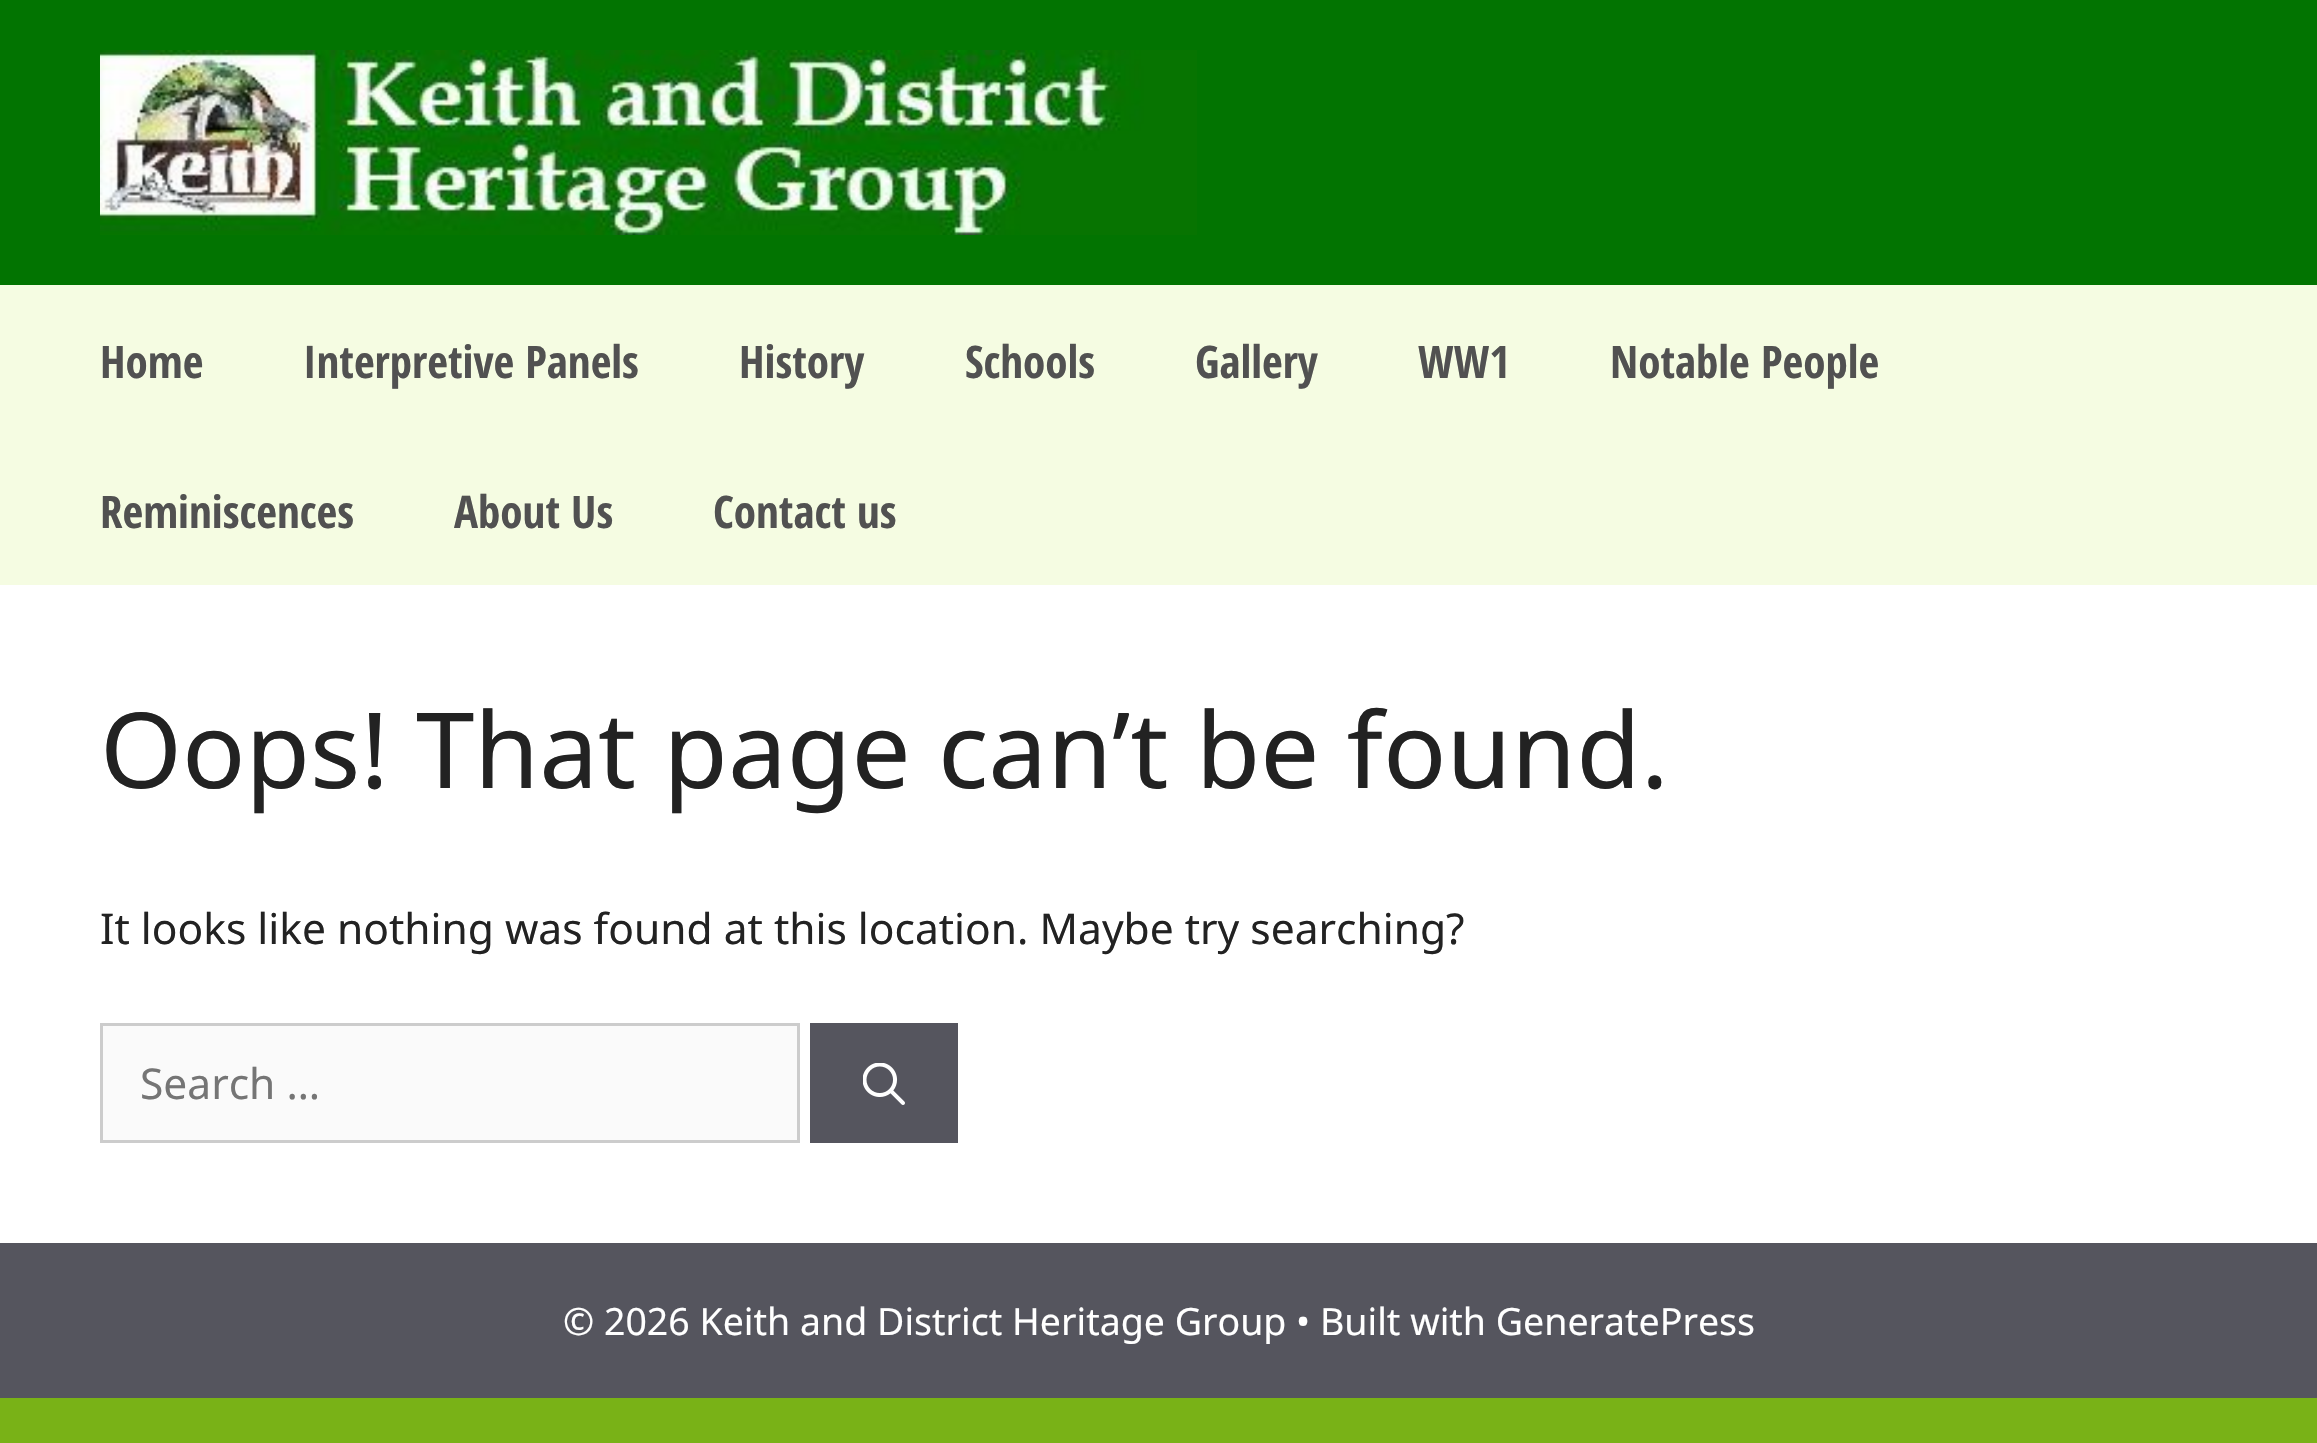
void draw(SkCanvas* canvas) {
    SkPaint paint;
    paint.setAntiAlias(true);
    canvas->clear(0xFF79B217);
    paint.setColor(0xFF027401);
    canvas->drawRect(SkRect::MakeXYWH(0, 0, 2317, 285), paint);
    canvas->drawImageRect(SkImages::DeferredFromEncodedData(SkData::MakeFromFileName("img1.png")), SkRect::MakeXYWH(100, 50, 1097, 185), SkSamplingOptions());
    paint.setColor(0xFFF5FCE2);
    canvas->drawRect(SkRect::MakeXYWH(0, 285, 2317, 300), paint);
    SkFont font1(fontMgr->matchFamilyStyle("Open Sans Condensed", SkFontStyle::Bold()), 45);
    font1.setSubpixel(true);
    paint.setColor(0xFF515151);
    canvas->drawString("Home", 100, 378, font1, paint);
    canvas->drawString("Interpretive Panels", 303, 378, font1, paint);
    canvas->drawString("History", 739, 378, font1, paint);
    canvas->drawString("Schools", 965, 378, font1, paint);
    canvas->drawString("Gallery", 1195, 378, font1, paint);
    canvas->drawString("WW1", 1418, 378, font1, paint);
    canvas->drawString("Notable People", 1610, 378, font1, paint);
    canvas->drawString("Reminiscences", 100, 528, font1, paint);
    canvas->drawString("About Us", 454, 528, font1, paint);
    canvas->drawString("Contact us", 713, 528, font1, paint);
    paint.setColor(0xFFFFFFFF);
    canvas->drawRect(SkRect::MakeXYWH(0, 585, 2317, 658), paint);
    SkFont font2(fontMgr->matchFamilyStyle("Noto Sans", SkFontStyle::Normal()), 105);
    font2.setSubpixel(true);
    paint.setColor(0xFF222222);
    canvas->drawString("Oops! That page can’t be found.", 100, 788, font2, paint);
    SkFont font3(fontMgr->matchFamilyStyle("Noto Sans", SkFontStyle::Normal()), 42.5f);
    font3.setSubpixel(true);
    canvas->drawString("It looks like nothing was found at this location. Maybe try searching?", 100, 944, font3, paint);
    paint.setColor(0xFFFAFAFA);
    canvas->drawRect(SkRect::MakeXYWH(101.5f, 1024.5f, 697, 117), paint);
    paint.setStyle(SkPaint::kStroke_Style);
    paint.setStrokeWidth(3);
    paint.setColor(0xFFCCCCCC);
    canvas->drawRect(SkRect::MakeXYWH(101.5f, 1024.5f, 697, 117), paint);
    paint.setStyle(SkPaint::kFill_Style);
    paint.setColor(0xFF757575);
    canvas->drawString("Search …", 140, 1099, font3, paint);
    paint.setColor(0xFF55555E);
    canvas->drawRect(SkRect::MakeXYWH(810, 1023, 148, 120), paint);
    canvas->drawImageRect(SkImages::DeferredFromEncodedData(SkData::MakeFromFileName("img2.png")), SkRect::MakeXYWH(863, 1063, 42, 42), SkSamplingOptions());
    canvas->drawRect(SkRect::MakeXYWH(0, 1243, 2317, 155), paint);
    SkFont font4(fontMgr->matchFamilyStyle("Noto Sans", SkFontStyle::Normal()), 37.5f);
    font4.setSubpixel(true);
    paint.setColor(0xFFFFFFFF);
    canvas->drawString("© 2026 Keith and District Heritage Group • Built with GeneratePress", 563, 1335, font4, paint);
}
